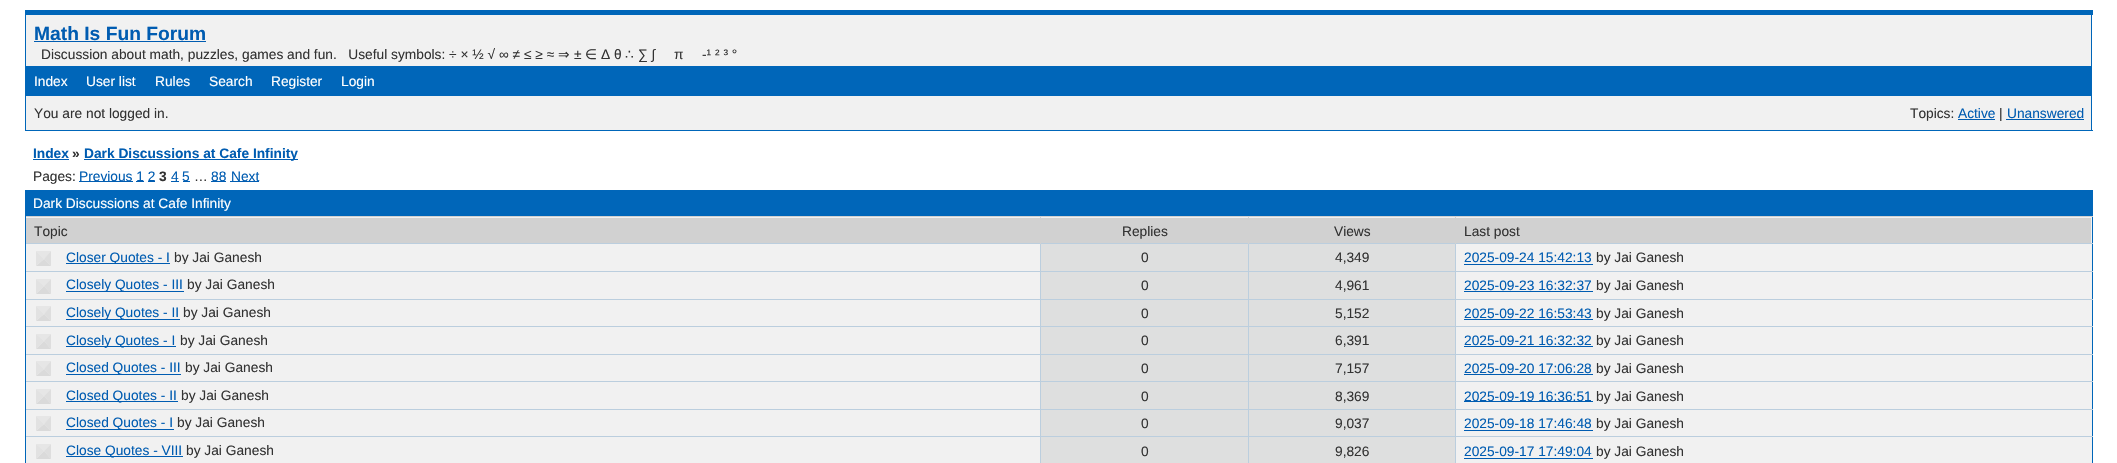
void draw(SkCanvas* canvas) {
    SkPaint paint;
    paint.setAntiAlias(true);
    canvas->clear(0xFFFFFFFF);
    paint.setColor(0xFFF1F1F1);
    canvas->drawRect(SkRect::MakeXYWH(26, 15, 2065, 115), paint);
    paint.setColor(0xFF0066B9);
    canvas->drawRect(SkRect::MakeXYWH(25, 10, 2068, 5), paint);
    canvas->drawRect(SkRect::MakeXYWH(2091, 10, 1, 121), paint);
    canvas->drawRect(SkRect::MakeXYWH(25, 130, 2068, 1), paint);
    canvas->drawRect(SkRect::MakeXYWH(25, 10, 1, 121), paint);
    SkFont font1(fontMgr->matchFamilyStyle("Liberation Sans", SkFontStyle::Bold()), 19.25f);
    font1.setSubpixel(true);
    paint.setColor(0xFF005CB1);
    canvas->drawString("Math Is Fun Forum", 34, 40, font1, paint);
    canvas->drawRect(SkRect::MakeXYWH(34, 41, 172, 1), paint);
    SkFont font2(fontMgr->matchFamilyStyle("Liberation Sans", SkFontStyle::Normal()), 13.75f);
    font2.setSubpixel(true);
    paint.setColor(0xFF333333);
    canvas->drawString("Discussion about math, puzzles, games and fun.   Useful symbols: ÷ × ½ √ ∞ ≠ ≤ ≥ ≈", 41, 59, font2, paint);
    SkFont font3(fontMgr->matchFamilyStyle("DejaVu Sans", SkFontStyle::Normal()), 13.75f);
    font3.setSubpixel(true);
    canvas->drawString("⇒", 558, 59, font3, paint);
    canvas->drawString("±", 574, 59, font2, paint);
    canvas->drawString("∈", 585, 59, font3, paint);
    canvas->drawString("Δ θ", 601, 59, font2, paint);
    canvas->drawString("∴", 625, 59, font3, paint);
    canvas->drawString("∑ ∫", 638, 59, font2, paint);
    canvas->drawString("π", 674, 59, font2, paint);
    canvas->drawString("-¹ ² ³ °", 702, 59, font2, paint);
    paint.setColor(0xFF0066B9);
    canvas->drawRect(SkRect::MakeXYWH(26, 66, 2065, 30), paint);
    paint.setColor(0xFFFFFFFF);
    canvas->drawString("Index", 34, 86, font2, paint);
    canvas->drawString("User list", 86, 86, font2, paint);
    canvas->drawString("Rules", 155, 86, font2, paint);
    canvas->drawString("Search", 209, 86, font2, paint);
    canvas->drawString("Register", 271, 86, font2, paint);
    canvas->drawString("Login", 341, 86, font2, paint);
    paint.setColor(0xFF333333);
    canvas->drawString("You are not logged in.", 34, 118, font2, paint);
    canvas->drawString("Topics:", 1910, 118, font2, paint);
    paint.setColor(0xFF005CB1);
    canvas->drawString("Active", 1958, 118, font2, paint);
    canvas->drawRect(SkRect::MakeXYWH(1958, 119, 37, 1), paint);
    paint.setColor(0xFF333333);
    canvas->drawString("|", 1999, 118, font2, paint);
    paint.setColor(0xFF005CB1);
    canvas->drawString("Unanswered", 2007, 118, font2, paint);
    canvas->drawRect(SkRect::MakeXYWH(2006, 119, 78, 1), paint);
    SkFont font4(fontMgr->matchFamilyStyle("Liberation Sans", SkFontStyle::Bold()), 13.75f);
    font4.setSubpixel(true);
    canvas->drawString("Index", 33, 158, font4, paint);
    canvas->drawRect(SkRect::MakeXYWH(33, 159, 36, 1), paint);
    paint.setColor(0xFF333333);
    canvas->drawString("»", 72, 158, font4, paint);
    paint.setColor(0xFF005CB1);
    canvas->drawRect(SkRect::MakeXYWH(84, 159, 214, 1), paint);
    canvas->drawString("Dark Discussions at Cafe Infinity", 84, 158, font4, paint);
    paint.setColor(0xFF333333);
    canvas->drawString("Pages:", 33, 181, font2, paint);
    paint.setColor(0xFF005CB1);
    canvas->drawRect(SkRect::MakeXYWH(79, 181, 54, 1), paint);
    canvas->drawString("Previous 1 2", 79, 181, font2, paint);
    paint.setColor(0xFF333333);
    canvas->drawString("3", 159, 181, font4, paint);
    paint.setColor(0xFF005CB1);
    canvas->drawString("4", 171, 181, font2, paint);
    canvas->drawRect(SkRect::MakeXYWH(171, 181, 8, 1), paint);
    canvas->drawRect(SkRect::MakeXYWH(183, 181, 7, 1), paint);
    canvas->drawString("5", 182, 181, font2, paint);
    paint.setColor(0xFF333333);
    canvas->drawString("…", 194, 181, font2, paint);
    paint.setColor(0xFF005CB1);
    canvas->drawRect(SkRect::MakeXYWH(211, 181, 15, 1), paint);
    canvas->drawString("88", 211, 181, font2, paint);
    canvas->drawRect(SkRect::MakeXYWH(230, 181, 29, 1), paint);
    canvas->drawString("Next", 231, 181, font2, paint);
    canvas->drawRect(SkRect::MakeXYWH(136, 181, 8, 1), paint);
    canvas->drawRect(SkRect::MakeXYWH(148, 181, 7, 1), paint);
    paint.setColor(0xFF0066B9);
    canvas->drawRect(SkRect::MakeXYWH(25, 190, 2068, 25), paint);
    paint.setColor(0xFFFFFFFF);
    canvas->drawString("Dark Discussions at Cafe Infinity", 33, 208, font2, paint);
    paint.setColor(0xFFF1F1F1);
    canvas->drawRect(SkRect::MakeXYWH(26, 217, 2066, 246), paint);
    paint.setStyle(SkPaint::kStroke_Style);
    paint.setStrokeWidth(1);
    paint.setColor(0xFF0066B9);
    canvas->drawRect(SkRect::MakeXYWH(25.5f, 215.5f, 2067, 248), paint);
    paint.setStyle(SkPaint::kFill_Style);
    paint.setColor(0xFFD1D1D1);
    canvas->drawRect(SkRect::MakeXYWH(26, 218, 1014, 25), paint);
    canvas->drawRect(SkRect::MakeXYWH(1455, 216, 638, 1), paint);
    paint.setColor(0xFFBBCEDE);
    canvas->drawRect(SkRect::MakeXYWH(1455, 243, 638, 1), paint);
    canvas->drawRect(SkRect::MakeXYWH(1455, 271, 638, 1), paint);
    canvas->drawRect(SkRect::MakeXYWH(1455, 299, 638, 1), paint);
    canvas->drawRect(SkRect::MakeXYWH(1455, 326, 638, 1), paint);
    canvas->drawRect(SkRect::MakeXYWH(1455, 354, 638, 1), paint);
    canvas->drawRect(SkRect::MakeXYWH(1455, 381, 638, 1), paint);
    canvas->drawRect(SkRect::MakeXYWH(1455, 409, 638, 1), paint);
    paint.setColor(0xFFDEDFDF);
    canvas->drawRect(SkRect::MakeXYWH(1249, 410, 206, 53), paint);
    paint.setColor(0xFFBBCEDE);
    canvas->drawRect(SkRect::MakeXYWH(1455, 436, 638, 1), paint);
    canvas->drawRect(SkRect::MakeXYWH(1455, 436, 1, 27), paint);
    canvas->drawRect(SkRect::MakeXYWH(1248, 436, 208, 1), paint);
    canvas->drawRect(SkRect::MakeXYWH(1455, 409, 1, 29), paint);
    canvas->drawRect(SkRect::MakeXYWH(1248, 409, 208, 1), paint);
    canvas->drawRect(SkRect::MakeXYWH(1455, 381, 1, 29), paint);
    canvas->drawRect(SkRect::MakeXYWH(1248, 381, 208, 1), paint);
    canvas->drawRect(SkRect::MakeXYWH(1455, 354, 1, 29), paint);
    canvas->drawRect(SkRect::MakeXYWH(1248, 354, 208, 1), paint);
    canvas->drawRect(SkRect::MakeXYWH(1455, 326, 1, 29), paint);
    canvas->drawRect(SkRect::MakeXYWH(1248, 326, 208, 1), paint);
    canvas->drawRect(SkRect::MakeXYWH(1455, 299, 1, 29), paint);
    canvas->drawRect(SkRect::MakeXYWH(1248, 299, 208, 1), paint);
    canvas->drawRect(SkRect::MakeXYWH(1455, 271, 1, 29), paint);
    canvas->drawRect(SkRect::MakeXYWH(1248, 271, 208, 1), paint);
    canvas->drawRect(SkRect::MakeXYWH(1455, 243, 1, 30), paint);
    canvas->drawRect(SkRect::MakeXYWH(1248, 243, 208, 1), paint);
    paint.setColor(0xFFD1D1D1);
    canvas->drawRect(SkRect::MakeXYWH(1455, 216, 1, 28), paint);
    canvas->drawRect(SkRect::MakeXYWH(1248, 216, 208, 1), paint);
    paint.setColor(0xFFDEDFDF);
    canvas->drawRect(SkRect::MakeXYWH(1041, 410, 207, 53), paint);
    paint.setColor(0xFFBBCEDE);
    canvas->drawRect(SkRect::MakeXYWH(1248, 436, 1, 27), paint);
    canvas->drawRect(SkRect::MakeXYWH(1040, 436, 209, 1), paint);
    canvas->drawRect(SkRect::MakeXYWH(1248, 409, 1, 29), paint);
    canvas->drawRect(SkRect::MakeXYWH(1040, 409, 209, 1), paint);
    canvas->drawRect(SkRect::MakeXYWH(1248, 381, 1, 29), paint);
    canvas->drawRect(SkRect::MakeXYWH(1040, 381, 209, 1), paint);
    canvas->drawRect(SkRect::MakeXYWH(1248, 354, 1, 29), paint);
    canvas->drawRect(SkRect::MakeXYWH(1040, 354, 209, 1), paint);
    canvas->drawRect(SkRect::MakeXYWH(1248, 326, 1, 29), paint);
    canvas->drawRect(SkRect::MakeXYWH(1040, 326, 209, 1), paint);
    canvas->drawRect(SkRect::MakeXYWH(1248, 299, 1, 29), paint);
    canvas->drawRect(SkRect::MakeXYWH(1040, 299, 209, 1), paint);
    canvas->drawRect(SkRect::MakeXYWH(1248, 271, 1, 29), paint);
    canvas->drawRect(SkRect::MakeXYWH(1040, 271, 209, 1), paint);
    canvas->drawRect(SkRect::MakeXYWH(1248, 243, 1, 30), paint);
    canvas->drawRect(SkRect::MakeXYWH(1040, 243, 209, 1), paint);
    paint.setColor(0xFFD1D1D1);
    canvas->drawRect(SkRect::MakeXYWH(1248, 216, 1, 28), paint);
    canvas->drawRect(SkRect::MakeXYWH(1040, 216, 209, 1), paint);
    paint.setColor(0xFFBBCEDE);
    canvas->drawRect(SkRect::MakeXYWH(1040, 436, 1, 27), paint);
    canvas->drawRect(SkRect::MakeXYWH(26, 436, 1015, 1), paint);
    canvas->drawRect(SkRect::MakeXYWH(1040, 409, 1, 29), paint);
    canvas->drawRect(SkRect::MakeXYWH(26, 409, 1015, 1), paint);
    canvas->drawRect(SkRect::MakeXYWH(1040, 381, 1, 29), paint);
    canvas->drawRect(SkRect::MakeXYWH(26, 381, 1015, 1), paint);
    canvas->drawRect(SkRect::MakeXYWH(1040, 354, 1, 29), paint);
    canvas->drawRect(SkRect::MakeXYWH(26, 354, 1015, 1), paint);
    canvas->drawRect(SkRect::MakeXYWH(1040, 326, 1, 29), paint);
    canvas->drawRect(SkRect::MakeXYWH(26, 326, 1015, 1), paint);
    canvas->drawRect(SkRect::MakeXYWH(1040, 299, 1, 29), paint);
    canvas->drawRect(SkRect::MakeXYWH(26, 299, 1015, 1), paint);
    canvas->drawRect(SkRect::MakeXYWH(1040, 271, 1, 29), paint);
    canvas->drawRect(SkRect::MakeXYWH(26, 271, 1015, 1), paint);
    canvas->drawRect(SkRect::MakeXYWH(1040, 243, 1, 30), paint);
    canvas->drawRect(SkRect::MakeXYWH(26, 243, 1015, 1), paint);
    paint.setColor(0xFFD1D1D1);
    canvas->drawRect(SkRect::MakeXYWH(1040, 216, 1, 28), paint);
    canvas->drawRect(SkRect::MakeXYWH(26, 216, 1015, 1), paint);
    paint.setColor(0xFF333333);
    canvas->drawString("Topic", 34, 236, font2, paint);
    paint.setColor(0xFFD1D1D1);
    canvas->drawRect(SkRect::MakeXYWH(1041, 218, 207, 25), paint);
    paint.setColor(0xFF333333);
    canvas->drawString("Replies", 1122, 236, font2, paint);
    paint.setColor(0xFFD1D1D1);
    canvas->drawRect(SkRect::MakeXYWH(1249, 218, 206, 25), paint);
    paint.setColor(0xFF333333);
    canvas->drawString("Views", 1334, 236, font2, paint);
    paint.setColor(0xFFD1D1D1);
    canvas->drawRect(SkRect::MakeXYWH(1456, 218, 635, 25), paint);
    paint.setColor(0xFF333333);
    canvas->drawString("Last post", 1464, 236, font2, paint);
    paint.setColor(0xFFE6E6E6);
    canvas->drawPath(SkPathBuilder().moveTo(36, 251).lineTo(51, 251).lineTo(44, 259).close().detach(), paint);
    paint.setColor(0xFFDEDEDE);
    canvas->drawPath(SkPathBuilder().moveTo(51, 251).lineTo(51, 266).lineTo(44, 259).close().detach(), paint);
    paint.setColor(0xFFDADADA);
    canvas->drawPath(SkPathBuilder().moveTo(51, 266).lineTo(36, 266).lineTo(44, 259).close().detach(), paint);
    paint.setColor(0xFFE2E2E2);
    canvas->drawPath(SkPathBuilder().moveTo(36, 266).lineTo(36, 251).lineTo(44, 259).close().detach(), paint);
    paint.setColor(0xFF005CB1);
    canvas->drawRect(SkRect::MakeXYWH(66, 263, 104, 1), paint);
    canvas->save();
    canvas->clipRect(SkRect::MakeXYWH(66, 249, 953, 15));
    canvas->drawString("Closer Quotes - I", 66, 262, font2, paint);
    paint.setColor(0xFF333333);
    canvas->drawString("by Jai Ganesh", 174, 262, font2, paint);
    canvas->restore();
    paint.setColor(0xFFDEDFDF);
    canvas->drawRect(SkRect::MakeXYWH(1041, 244, 207, 27), paint);
    paint.setColor(0xFF333333);
    canvas->drawString("0", 1141, 262, font2, paint);
    paint.setColor(0xFFDEDFDF);
    canvas->drawRect(SkRect::MakeXYWH(1249, 244, 206, 27), paint);
    paint.setColor(0xFF333333);
    canvas->drawString("4,349", 1335, 262, font2, paint);
    paint.setColor(0xFF005CB1);
    canvas->drawString("2025-09-24 15:42:13", 1464, 262, font2, paint);
    canvas->drawRect(SkRect::MakeXYWH(1464, 264, 129, 1), paint);
    paint.setColor(0xFF333333);
    canvas->drawString("by Jai Ganesh", 1596, 262, font2, paint);
    paint.setColor(0xFFE6E6E6);
    canvas->drawPath(SkPathBuilder().moveTo(36, 279).lineTo(51, 279).lineTo(44, 286).close().detach(), paint);
    paint.setColor(0xFFDEDEDE);
    canvas->drawPath(SkPathBuilder().moveTo(51, 279).lineTo(51, 294).lineTo(44, 286).close().detach(), paint);
    paint.setColor(0xFFDADADA);
    canvas->drawPath(SkPathBuilder().moveTo(51, 294).lineTo(36, 294).lineTo(44, 286).close().detach(), paint);
    paint.setColor(0xFFE2E2E2);
    canvas->drawPath(SkPathBuilder().moveTo(36, 294).lineTo(36, 279).lineTo(44, 286).close().detach(), paint);
    paint.setColor(0xFF005CB1);
    canvas->drawRect(SkRect::MakeXYWH(66, 291, 118, 1), paint);
    canvas->drawString("Closely Quotes - III", 66, 289, font2, paint);
    paint.setColor(0xFF333333);
    canvas->drawString("by Jai Ganesh", 187, 289, font2, paint);
    paint.setColor(0xFFDEDFDF);
    canvas->drawRect(SkRect::MakeXYWH(1041, 272, 207, 27), paint);
    paint.setColor(0xFF333333);
    canvas->drawString("0", 1141, 290, font2, paint);
    paint.setColor(0xFFDEDFDF);
    canvas->drawRect(SkRect::MakeXYWH(1249, 272, 206, 27), paint);
    paint.setColor(0xFF333333);
    canvas->drawString("4,961", 1335, 290, font2, paint);
    paint.setColor(0xFF005CB1);
    canvas->drawString("2025-09-23 16:32:37", 1464, 290, font2, paint);
    canvas->drawRect(SkRect::MakeXYWH(1464, 291, 129, 1), paint);
    paint.setColor(0xFF333333);
    canvas->drawString("by Jai Ganesh", 1596, 290, font2, paint);
    paint.setColor(0xFFE6E6E6);
    canvas->drawPath(SkPathBuilder().moveTo(36, 306).lineTo(51, 306).lineTo(44, 314).close().detach(), paint);
    paint.setColor(0xFFDEDEDE);
    canvas->drawPath(SkPathBuilder().moveTo(51, 306).lineTo(51, 321).lineTo(44, 314).close().detach(), paint);
    paint.setColor(0xFFDADADA);
    canvas->drawPath(SkPathBuilder().moveTo(51, 321).lineTo(36, 321).lineTo(44, 314).close().detach(), paint);
    paint.setColor(0xFFE2E2E2);
    canvas->drawPath(SkPathBuilder().moveTo(36, 321).lineTo(36, 306).lineTo(44, 314).close().detach(), paint);
    paint.setColor(0xFF005CB1);
    canvas->drawRect(SkRect::MakeXYWH(66, 319, 114, 1), paint);
    canvas->drawString("Closely Quotes - II", 66, 317, font2, paint);
    paint.setColor(0xFF333333);
    canvas->drawString("by Jai Ganesh", 183, 317, font2, paint);
    paint.setColor(0xFFDEDFDF);
    canvas->drawRect(SkRect::MakeXYWH(1041, 300, 207, 26), paint);
    paint.setColor(0xFF333333);
    canvas->drawString("0", 1141, 318, font2, paint);
    paint.setColor(0xFFDEDFDF);
    canvas->drawRect(SkRect::MakeXYWH(1249, 300, 206, 26), paint);
    paint.setColor(0xFF333333);
    canvas->drawString("5,152", 1335, 318, font2, paint);
    paint.setColor(0xFF005CB1);
    canvas->drawString("2025-09-22 16:53:43", 1464, 318, font2, paint);
    canvas->drawRect(SkRect::MakeXYWH(1464, 319, 129, 1), paint);
    paint.setColor(0xFF333333);
    canvas->drawString("by Jai Ganesh", 1596, 318, font2, paint);
    paint.setColor(0xFFE6E6E6);
    canvas->drawPath(SkPathBuilder().moveTo(36, 334).lineTo(51, 334).lineTo(44, 341).close().detach(), paint);
    paint.setColor(0xFFDEDEDE);
    canvas->drawPath(SkPathBuilder().moveTo(51, 334).lineTo(51, 349).lineTo(44, 341).close().detach(), paint);
    paint.setColor(0xFFDADADA);
    canvas->drawPath(SkPathBuilder().moveTo(51, 349).lineTo(36, 349).lineTo(44, 341).close().detach(), paint);
    paint.setColor(0xFFE2E2E2);
    canvas->drawPath(SkPathBuilder().moveTo(36, 349).lineTo(36, 334).lineTo(44, 341).close().detach(), paint);
    paint.setColor(0xFF005CB1);
    canvas->drawRect(SkRect::MakeXYWH(66, 346, 110, 1), paint);
    canvas->drawString("Closely Quotes - I", 66, 345, font2, paint);
    paint.setColor(0xFF333333);
    canvas->drawString("by Jai Ganesh", 180, 345, font2, paint);
    paint.setColor(0xFFDEDFDF);
    canvas->drawRect(SkRect::MakeXYWH(1041, 327, 207, 27), paint);
    paint.setColor(0xFF333333);
    canvas->drawString("0", 1141, 345, font2, paint);
    paint.setColor(0xFFDEDFDF);
    canvas->drawRect(SkRect::MakeXYWH(1249, 327, 206, 27), paint);
    paint.setColor(0xFF333333);
    canvas->drawString("6,391", 1335, 345, font2, paint);
    paint.setColor(0xFF005CB1);
    canvas->drawString("2025-09-21 16:32:32", 1464, 345, font2, paint);
    canvas->drawRect(SkRect::MakeXYWH(1464, 346, 129, 1), paint);
    paint.setColor(0xFF333333);
    canvas->drawString("by Jai Ganesh", 1596, 345, font2, paint);
    paint.setColor(0xFFE6E6E6);
    canvas->drawPath(SkPathBuilder().moveTo(36, 361).lineTo(51, 361).lineTo(44, 369).close().detach(), paint);
    paint.setColor(0xFFDEDEDE);
    canvas->drawPath(SkPathBuilder().moveTo(51, 361).lineTo(51, 376).lineTo(44, 369).close().detach(), paint);
    paint.setColor(0xFFDADADA);
    canvas->drawPath(SkPathBuilder().moveTo(51, 376).lineTo(36, 376).lineTo(44, 369).close().detach(), paint);
    paint.setColor(0xFFE2E2E2);
    canvas->drawPath(SkPathBuilder().moveTo(36, 376).lineTo(36, 361).lineTo(44, 369).close().detach(), paint);
    paint.setColor(0xFF005CB1);
    canvas->drawRect(SkRect::MakeXYWH(66, 374, 115, 1), paint);
    canvas->drawString("Closed Quotes - III", 66, 372, font2, paint);
    paint.setColor(0xFF333333);
    canvas->drawString("by Jai Ganesh", 185, 372, font2, paint);
    paint.setColor(0xFFDEDFDF);
    canvas->drawRect(SkRect::MakeXYWH(1041, 355, 207, 26), paint);
    paint.setColor(0xFF333333);
    canvas->drawString("0", 1141, 373, font2, paint);
    paint.setColor(0xFFDEDFDF);
    canvas->drawRect(SkRect::MakeXYWH(1249, 355, 206, 26), paint);
    paint.setColor(0xFF333333);
    canvas->drawString("7,157", 1335, 373, font2, paint);
    paint.setColor(0xFF005CB1);
    canvas->drawString("2025-09-20 17:06:28", 1464, 373, font2, paint);
    canvas->drawRect(SkRect::MakeXYWH(1464, 374, 129, 1), paint);
    paint.setColor(0xFF333333);
    canvas->drawString("by Jai Ganesh", 1596, 373, font2, paint);
    paint.setColor(0xFFE6E6E6);
    canvas->drawPath(SkPathBuilder().moveTo(36, 389).lineTo(51, 389).lineTo(44, 396).close().detach(), paint);
    paint.setColor(0xFFDEDEDE);
    canvas->drawPath(SkPathBuilder().moveTo(51, 389).lineTo(51, 404).lineTo(44, 396).close().detach(), paint);
    paint.setColor(0xFFDADADA);
    canvas->drawPath(SkPathBuilder().moveTo(51, 404).lineTo(36, 404).lineTo(44, 396).close().detach(), paint);
    paint.setColor(0xFFE2E2E2);
    canvas->drawPath(SkPathBuilder().moveTo(36, 404).lineTo(36, 389).lineTo(44, 396).close().detach(), paint);
    paint.setColor(0xFF005CB1);
    canvas->drawRect(SkRect::MakeXYWH(66, 401, 112, 1), paint);
    canvas->drawString("Closed Quotes - II", 66, 400, font2, paint);
    paint.setColor(0xFF333333);
    canvas->drawString("by Jai Ganesh", 181, 400, font2, paint);
    paint.setColor(0xFFDEDFDF);
    canvas->drawRect(SkRect::MakeXYWH(1041, 382, 207, 27), paint);
    paint.setColor(0xFF333333);
    canvas->drawString("0", 1141, 401, font2, paint);
    paint.setColor(0xFFDEDFDF);
    canvas->drawRect(SkRect::MakeXYWH(1249, 382, 206, 27), paint);
    paint.setColor(0xFF333333);
    canvas->drawString("8,369", 1335, 401, font2, paint);
    paint.setColor(0xFF005CB1);
    canvas->drawRect(SkRect::MakeXYWH(1464, 401, 129, 1), paint);
    canvas->drawString("2025-09-19 16:36:51", 1464, 401, font2, paint);
    paint.setColor(0xFF333333);
    canvas->drawString("by Jai Ganesh", 1596, 401, font2, paint);
    paint.setColor(0xFFE6E6E6);
    canvas->drawPath(SkPathBuilder().moveTo(36, 416).lineTo(51, 416).lineTo(44, 424).close().detach(), paint);
    paint.setColor(0xFFDEDEDE);
    canvas->drawPath(SkPathBuilder().moveTo(51, 416).lineTo(51, 431).lineTo(44, 424).close().detach(), paint);
    paint.setColor(0xFFDADADA);
    canvas->drawPath(SkPathBuilder().moveTo(51, 431).lineTo(36, 431).lineTo(44, 424).close().detach(), paint);
    paint.setColor(0xFFE2E2E2);
    canvas->drawPath(SkPathBuilder().moveTo(36, 431).lineTo(36, 416).lineTo(44, 424).close().detach(), paint);
    paint.setColor(0xFF005CB1);
    canvas->drawRect(SkRect::MakeXYWH(66, 429, 108, 1), paint);
    canvas->drawString("Closed Quotes - I", 66, 427, font2, paint);
    paint.setColor(0xFF333333);
    canvas->drawString("by Jai Ganesh", 177, 427, font2, paint);
    canvas->drawString("0", 1141, 428, font2, paint);
    canvas->drawString("9,037", 1335, 428, font2, paint);
    paint.setColor(0xFF005CB1);
    canvas->drawString("2025-09-18 17:46:48", 1464, 428, font2, paint);
    canvas->drawRect(SkRect::MakeXYWH(1464, 430, 129, 1), paint);
    paint.setColor(0xFF333333);
    canvas->drawString("by Jai Ganesh", 1596, 428, font2, paint);
    paint.setColor(0xFFE6E6E6);
    canvas->drawPath(SkPathBuilder().moveTo(36, 444).lineTo(51, 444).lineTo(44, 451).close().detach(), paint);
    paint.setColor(0xFFDEDEDE);
    canvas->drawPath(SkPathBuilder().moveTo(51, 444).lineTo(51, 459).lineTo(44, 451).close().detach(), paint);
    paint.setColor(0xFFDADADA);
    canvas->drawPath(SkPathBuilder().moveTo(51, 459).lineTo(36, 459).lineTo(44, 451).close().detach(), paint);
    paint.setColor(0xFFE2E2E2);
    canvas->drawPath(SkPathBuilder().moveTo(36, 459).lineTo(36, 444).lineTo(44, 451).close().detach(), paint);
    paint.setColor(0xFF005CB1);
    canvas->drawRect(SkRect::MakeXYWH(66, 456, 117, 1), paint);
    canvas->drawString("Close Quotes - VIII", 66, 455, font2, paint);
    paint.setColor(0xFF333333);
    canvas->drawString("by Jai Ganesh", 186, 455, font2, paint);
    canvas->drawString("0", 1141, 456, font2, paint);
    canvas->drawString("9,826", 1335, 456, font2, paint);
    paint.setColor(0xFF005CB1);
    canvas->drawString("2025-09-17 17:49:04", 1464, 456, font2, paint);
    canvas->drawRect(SkRect::MakeXYWH(1464, 458, 129, 1), paint);
    paint.setColor(0xFF333333);
    canvas->drawString("by Jai Ganesh", 1596, 456, font2, paint);
}
